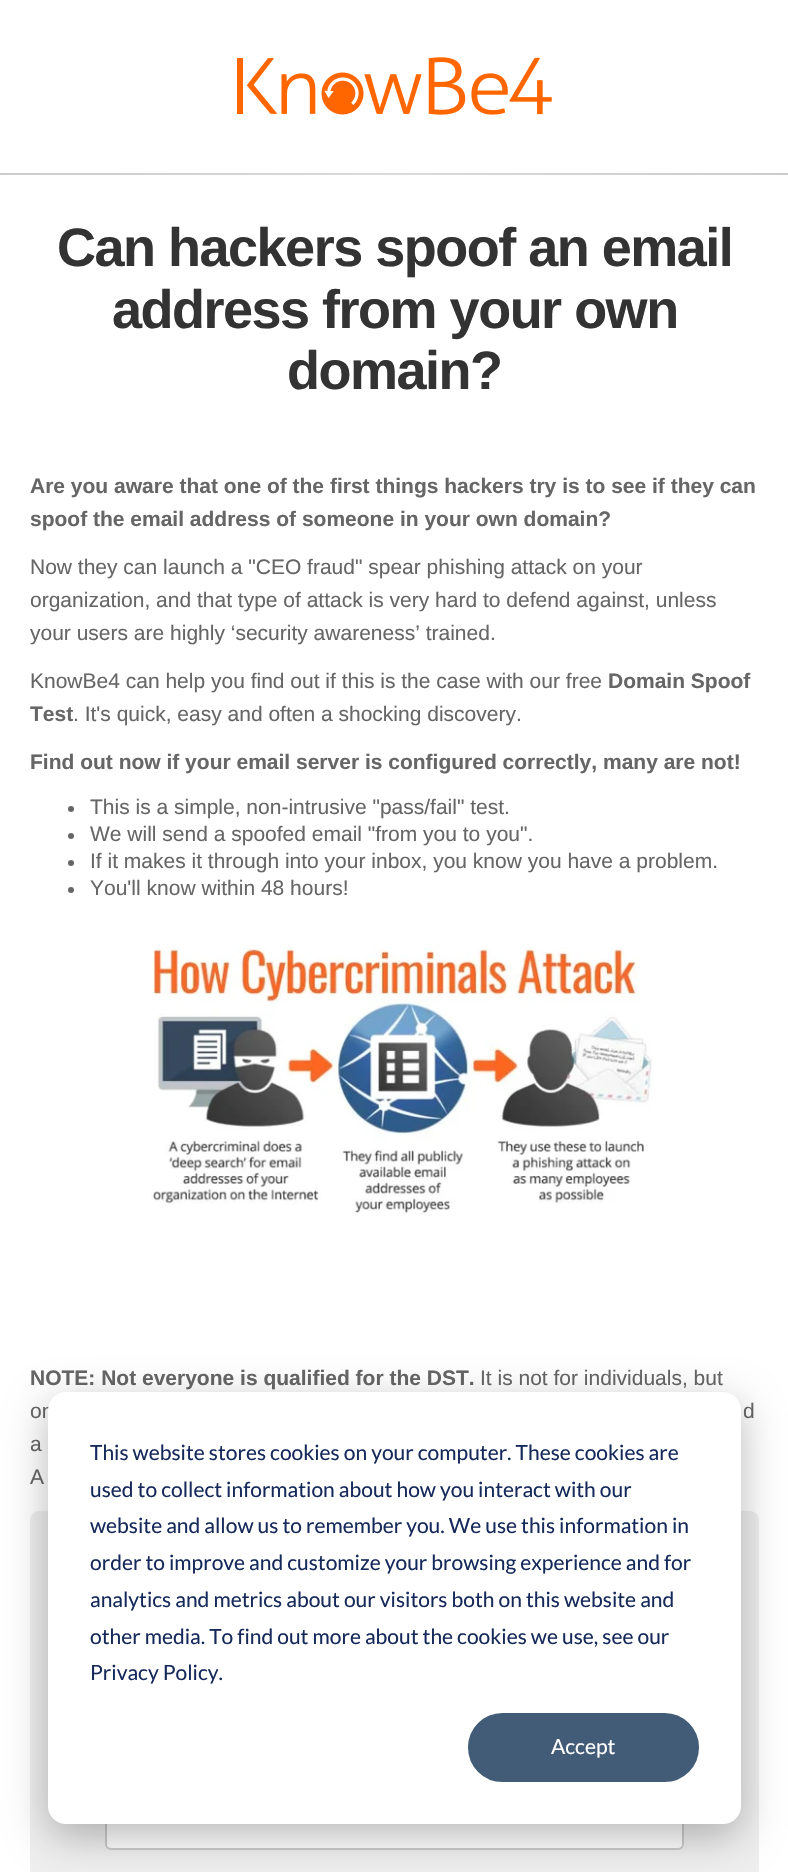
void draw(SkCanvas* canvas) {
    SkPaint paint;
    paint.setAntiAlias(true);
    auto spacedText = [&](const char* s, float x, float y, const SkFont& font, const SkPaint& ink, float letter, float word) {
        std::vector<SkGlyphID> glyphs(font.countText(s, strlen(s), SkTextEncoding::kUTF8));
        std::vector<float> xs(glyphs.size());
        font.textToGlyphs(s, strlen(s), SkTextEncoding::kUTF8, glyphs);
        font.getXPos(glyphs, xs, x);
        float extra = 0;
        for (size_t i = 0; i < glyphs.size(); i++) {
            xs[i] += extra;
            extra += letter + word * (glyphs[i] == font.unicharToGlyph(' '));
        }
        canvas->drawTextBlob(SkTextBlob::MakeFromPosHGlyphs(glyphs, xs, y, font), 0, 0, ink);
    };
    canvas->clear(0xFFFFFFFF);
    canvas->drawImageRect(SkImages::DeferredFromEncodedData(SkData::MakeFromFileName("img1.png")), SkRect::MakeXYWH(237, 57, 315, 58), SkSamplingOptions());
    {
        const SkColor colors[] = {0xFFCCCCCC, 0xFFDBDBDB, 0xFFCCCCCC};
        const float stops[] = {0, 0.5f, 1};
        const SkPoint ends[] = {{0, 173}, {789, 173}};
        paint.setShader(SkGradientShader::MakeLinear(ends, colors, stops, 3, SkTileMode::kClamp));
        paint.setAlpha(255);
    }
    canvas->drawRect(SkRect::MakeXYWH(0, 173, 788, 2), paint);
    SkFont font1(fontMgr->matchFamilyStyle("Liberation Sans", SkFontStyle::Bold()), 54);
    font1.setSubpixel(true);
    paint.setShader(nullptr);
    paint.setColor(0xFF333333);
    spacedText("Can hackers spoof an email", 57, 266, font1, paint, -1.5f, 0);
    spacedText("address from your own", 112, 328, font1, paint, -1.5f, 0);
    spacedText("domain?", 287, 389, font1, paint, -1.5f, 0);
    SkFont font2(fontMgr->matchFamilyStyle("Liberation Sans", SkFontStyle::Bold()), 21);
    font2.setSubpixel(true);
    paint.setColor(0xFF666666);
    canvas->drawString("Are you aware that one of the first things hackers try is to see if they can", 30, 493, font2, paint);
    canvas->drawString("spoof the email address of someone in your own domain?", 30, 526, font2, paint);
    SkFont font3(fontMgr->matchFamilyStyle("Liberation Sans", SkFontStyle::Normal()), 21);
    font3.setSubpixel(true);
    canvas->drawString("Now they can launch a \"CEO fraud\" spear phishing attack on your", 30, 574, font3, paint);
    canvas->drawString("organization, and that type of attack is very hard to defend against, unless", 30, 607, font3, paint);
    canvas->drawString("your users are highly ‘security awareness’ trained.", 30, 640, font3, paint);
    canvas->drawString("KnowBe4 can help you find out if this is the case with our free", 30, 688, font3, paint);
    canvas->drawString("Domain Spoof", 608, 688, font2, paint);
    canvas->drawString("Test", 30, 721, font2, paint);
    canvas->drawString(". It's quick, easy and often a shocking discovery.", 73, 721, font3, paint);
    canvas->drawString("Find out now if your email server is configured correctly, many are not!", 30, 769, font2, paint);
    canvas->drawCircle(71, 809, 3, paint);
    canvas->drawString("This is a simple, non-intrusive \"pass/fail\" test.", 90, 814, font3, paint);
    canvas->drawCircle(71, 836, 3, paint);
    canvas->drawString("We will send a spoofed email \"from you to you\".", 90, 841, font3, paint);
    canvas->drawCircle(71, 863, 3, paint);
    canvas->drawString("If it makes it through into your inbox, you know you have a problem.", 90, 868, font3, paint);
    canvas->drawCircle(71, 890, 3, paint);
    canvas->drawString("You'll know within 48 hours!", 90, 895, font3, paint);
    canvas->drawImageRect(SkImages::DeferredFromEncodedData(SkData::MakeFromFileName("img2.png")), SkRect::MakeXYWH(151, 947, 503, 268), SkSamplingOptions());
    canvas->drawString("NOTE: Not everyone is qualified for the DST.", 30, 1385, font2, paint);
    canvas->drawString("It is not for individuals, but", 480, 1385, font3, paint);
    canvas->drawString("on", 30, 1418, font3, paint);
    canvas->drawString("d", 743, 1418, font3, paint);
    canvas->drawString("a", 30, 1451, font3, paint);
    canvas->drawString("A", 30, 1484, font3, paint);
    paint.setColor(0xFFEFEFEF);
    canvas->drawRoundRect(SkRect::MakeXYWH(30, 1511, 729, 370), 9, 9, paint);
    paint.setColor(0xFFFFFFFF);
    canvas->drawRoundRect(SkRect::MakeXYWH(106, 1800, 577, 49), 5, 5, paint);
    paint.setStyle(SkPaint::kStroke_Style);
    paint.setStrokeWidth(2);
    paint.setColor(0xFFCCCCCC);
    canvas->drawRoundRect(SkRect::MakeXYWH(106, 1800, 577, 49), 5, 5, paint);
    paint.setStyle(SkPaint::kFill_Style);
    paint.setColor(0x47000000);
    paint.setMaskFilter(SkMaskFilter::MakeBlur(kNormal_SkBlurStyle, 21));
    canvas->drawRoundRect(SkRect::MakeXYWH(48, 1404, 693, 432), 18, 18, paint);
    paint.setMaskFilter(nullptr);
    paint.setColor(0xFFFFFFFF);
    canvas->drawRoundRect(SkRect::MakeXYWH(48, 1392, 693, 432), 18, 18, paint);
    SkFont font4(fontMgr->matchFamilyStyle("Lato", SkFontStyle::Normal()), 21);
    font4.setSubpixel(true);
    paint.setColor(0xFF15295A);
    canvas->drawString("This website stores cookies on your computer. These cookies are", 90, 1460, font4, paint);
    canvas->drawString("used to collect information about how you interact with our", 90, 1497, font4, paint);
    canvas->drawString("website and allow us to remember you. We use this information in", 90, 1533, font4, paint);
    canvas->drawString("order to improve and customize your browsing experience and for", 90, 1570, font4, paint);
    canvas->drawString("analytics and metrics about our visitors both on this website and", 90, 1607, font4, paint);
    canvas->drawString("other media. To find out more about the cookies we use, see our", 90, 1644, font4, paint);
    canvas->drawString("Privacy Policy.", 90, 1680, font4, paint);
    paint.setColor(0xFF425B76);
    canvas->drawRoundRect(SkRect::MakeXYWH(469, 1714, 229, 67), 33.5f, 33.5f, paint);
    paint.setStyle(SkPaint::kStroke_Style);
    canvas->drawRoundRect(SkRect::MakeXYWH(469, 1714, 229, 67), 33.5f, 33.5f, paint);
    paint.setStyle(SkPaint::kFill_Style);
    paint.setColor(0xFFFFFFFF);
    canvas->drawString("Accept", 551, 1754, font4, paint);
}
